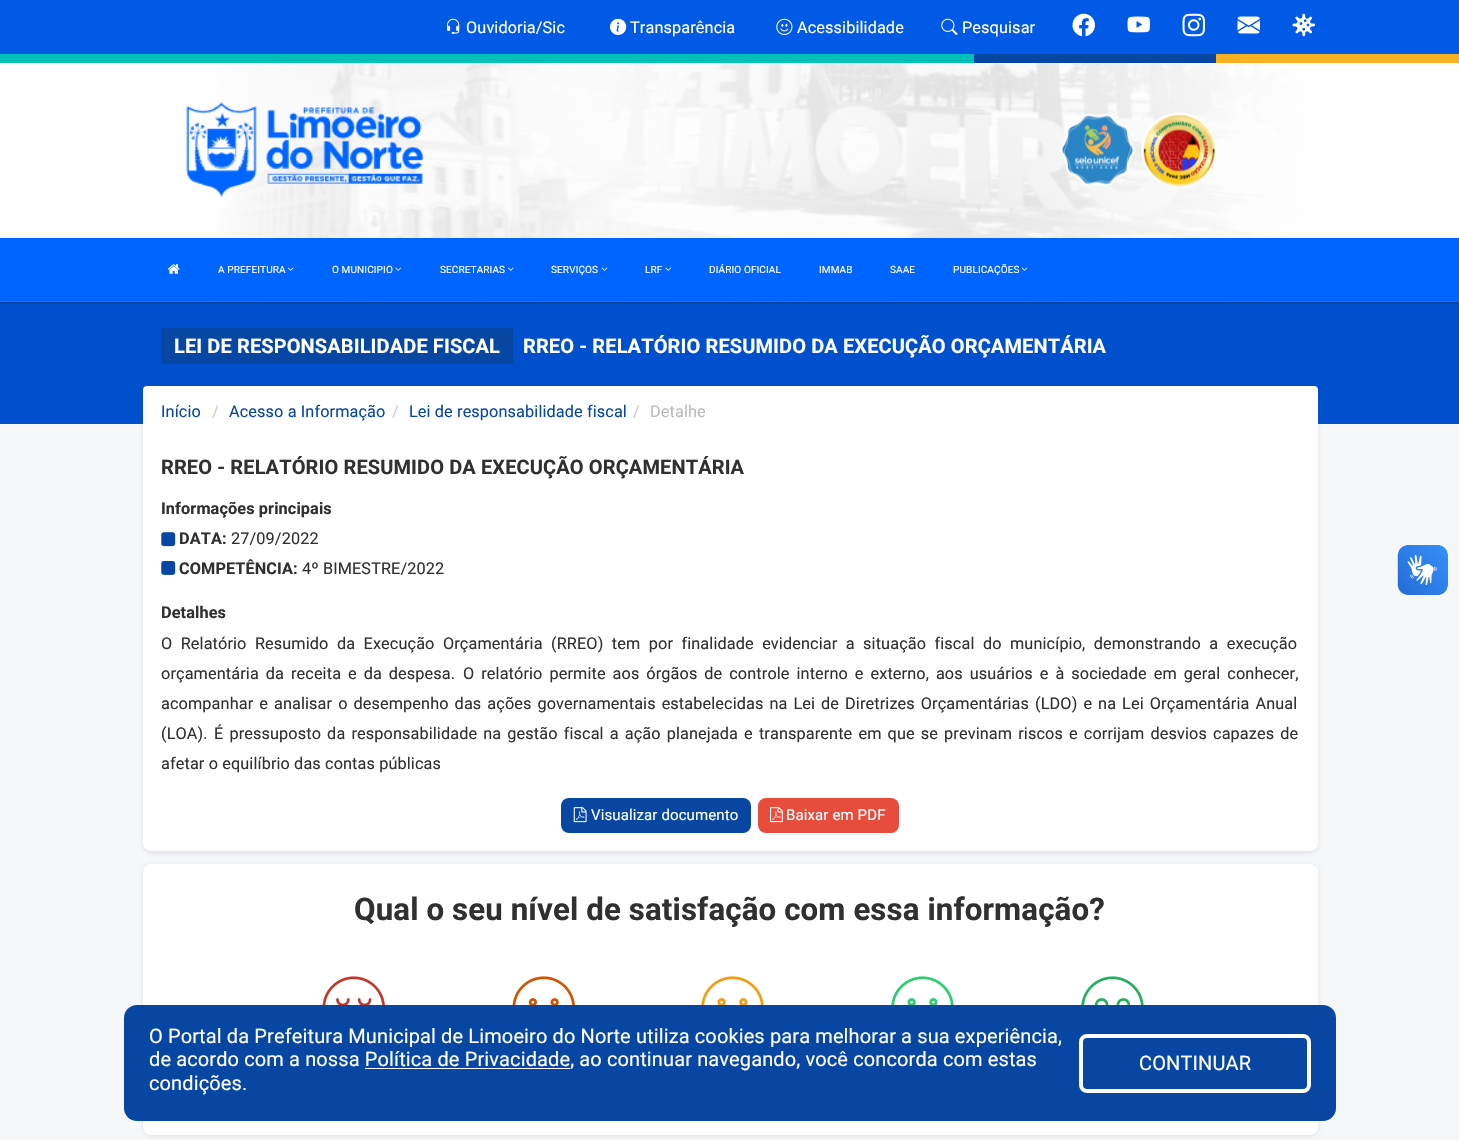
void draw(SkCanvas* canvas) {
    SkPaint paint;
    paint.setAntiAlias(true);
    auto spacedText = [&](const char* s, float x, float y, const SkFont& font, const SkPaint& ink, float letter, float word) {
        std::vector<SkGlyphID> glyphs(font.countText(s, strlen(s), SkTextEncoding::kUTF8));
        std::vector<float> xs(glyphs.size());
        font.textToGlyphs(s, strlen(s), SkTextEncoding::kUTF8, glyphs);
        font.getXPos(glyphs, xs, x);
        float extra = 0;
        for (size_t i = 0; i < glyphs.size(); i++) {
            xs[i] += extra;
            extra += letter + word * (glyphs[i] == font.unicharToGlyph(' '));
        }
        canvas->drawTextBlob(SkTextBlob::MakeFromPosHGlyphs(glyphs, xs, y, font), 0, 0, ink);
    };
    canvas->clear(0xFFF6F7F8);
    paint.setColor(0x17030047);
    paint.setMaskFilter(SkMaskFilter::MakeBlur(kNormal_SkBlurStyle, 2));
    canvas->drawRoundRect(SkRect::MakeXYWH(143, 388, 1175, 465), 8, 8, paint);
    paint.setMaskFilter(nullptr);
    paint.setColor(0xFFFFFFFF);
    canvas->drawRoundRect(SkRect::MakeXYWH(143, 386, 1175, 465), 8, 8, paint);
    paint.setColor(0xFF0050CD);
    canvas->drawRect(SkRect::MakeXYWH(0, 301, 1459, 123), paint);
    paint.setColor(0x4D000000);
    paint.setMaskFilter(SkMaskFilter::MakeBlur(kNormal_SkBlurStyle, 1));
    canvas->drawRect(SkRect::MakeXYWH(0, 1, 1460, 302), paint);
    paint.setMaskFilter(nullptr);
    canvas->drawImageRect(SkImages::DeferredFromEncodedData(SkData::MakeFromFileName("img1.png")), SkRect::MakeXYWH(0, 63, 1459, 239), SkSamplingOptions());
    paint.setColor(0xFF005AE6);
    canvas->drawRect(SkRect::MakeXYWH(0, 0, 1459, 54), paint);
    canvas->drawImageRect(SkImages::DeferredFromEncodedData(SkData::MakeFromFileName("img2.png")), SkRect::MakeXYWH(447, 18, 13, 16), SkSamplingOptions());
    SkFont font1(fontMgr->matchFamilyStyle("Roboto", SkFontStyle::Normal()), 16.25f);
    font1.setSubpixel(true);
    paint.setColor(0xFFFFFFFF);
    spacedText("Ouvidoria/Sic", 466, 33, font1, paint, 0.12f, 0);
    canvas->drawImageRect(SkImages::DeferredFromEncodedData(SkData::MakeFromFileName("img3.png")), SkRect::MakeXYWH(610, 18, 17, 17), SkSamplingOptions());
    spacedText("Transparência", 630, 33, font1, paint, 0.12f, 0);
    canvas->drawImageRect(SkImages::DeferredFromEncodedData(SkData::MakeFromFileName("img4.png")), SkRect::MakeXYWH(776, 18, 17, 17), SkSamplingOptions());
    spacedText("Acessibilidade", 797, 33, font1, paint, 0.12f, 0);
    canvas->drawImageRect(SkImages::DeferredFromEncodedData(SkData::MakeFromFileName("img5.png")), SkRect::MakeXYWH(941, 18, 17, 17), SkSamplingOptions());
    spacedText("Pesquisar", 962, 33, font1, paint, 0.12f, 0);
    canvas->drawImageRect(SkImages::DeferredFromEncodedData(SkData::MakeFromFileName("img6.png")), SkRect::MakeXYWH(1072, 13, 23, 24), SkSamplingOptions());
    canvas->drawImageRect(SkImages::DeferredFromEncodedData(SkData::MakeFromFileName("img7.png")), SkRect::MakeXYWH(1127, 16, 23, 17), SkSamplingOptions());
    canvas->drawImageRect(SkImages::DeferredFromEncodedData(SkData::MakeFromFileName("img8.png")), SkRect::MakeXYWH(1182, 13, 23, 24), SkSamplingOptions());
    canvas->drawImageRect(SkImages::DeferredFromEncodedData(SkData::MakeFromFileName("img9.png")), SkRect::MakeXYWH(1237, 16, 23, 18), SkSamplingOptions());
    canvas->drawImageRect(SkImages::DeferredFromEncodedData(SkData::MakeFromFileName("img10.png")), SkRect::MakeXYWH(1292, 13, 23, 24), SkSamplingOptions());
    paint.setColor(0xFF01C0BA);
    canvas->drawRect(SkRect::MakeXYWH(0, 54, 974, 9), paint);
    paint.setColor(0xFF0747A3);
    canvas->drawRect(SkRect::MakeXYWH(974, 54, 242, 9), paint);
    paint.setColor(0xFFFBB121);
    canvas->drawRect(SkRect::MakeXYWH(1216, 54, 243, 9), paint);
    canvas->drawImageRect(SkImages::DeferredFromEncodedData(SkData::MakeFromFileName("img11.png")), SkRect::MakeXYWH(186, 102, 238, 96), SkSamplingOptions());
    canvas->drawImageRect(SkImages::DeferredFromEncodedData(SkData::MakeFromFileName("img12.png")), SkRect::MakeXYWH(1060, 113, 75, 73), SkSamplingOptions());
    canvas->drawImageRect(SkImages::DeferredFromEncodedData(SkData::MakeFromFileName("img13.png")), SkRect::MakeXYWH(1141, 112, 74, 75), SkSamplingOptions());
    paint.setColor(0xFF0064FF);
    canvas->drawRect(SkRect::MakeXYWH(0, 238, 1459, 63), paint);
    canvas->drawImageRect(SkImages::DeferredFromEncodedData(SkData::MakeFromFileName("img14.png")), SkRect::MakeXYWH(167, 264, 13, 10), SkSamplingOptions());
    SkFont font2(fontMgr->matchFamilyStyle("Roboto", SkFontStyle::Normal()), 10);
    font2.setSubpixel(true);
    paint.setColor(0xFFFFFFFF);
    spacedText("A PREFEITURA", 218, 273, font2, paint, 0.12f, 0);
    canvas->drawImageRect(SkImages::DeferredFromEncodedData(SkData::MakeFromFileName("img15.png")), SkRect::MakeXYWH(288, 267, 6, 4), SkSamplingOptions());
    spacedText("O MUNICIPIO", 332, 273, font2, paint, 0.12f, 0);
    canvas->drawImageRect(SkImages::DeferredFromEncodedData(SkData::MakeFromFileName("img16.png")), SkRect::MakeXYWH(395, 267, 6, 4), SkSamplingOptions());
    spacedText("SECRETARIAS", 440, 273, font2, paint, 0.12f, 0);
    canvas->drawImageRect(SkImages::DeferredFromEncodedData(SkData::MakeFromFileName("img15.png")), SkRect::MakeXYWH(508, 267, 6, 4), SkSamplingOptions());
    spacedText("SERVIÇOS", 551, 273, font2, paint, 0.12f, 0);
    canvas->drawImageRect(SkImages::DeferredFromEncodedData(SkData::MakeFromFileName("img17.png")), SkRect::MakeXYWH(601, 267, 7, 4), SkSamplingOptions());
    spacedText("LRF", 645, 273, font2, paint, 0.12f, 0);
    canvas->drawImageRect(SkImages::DeferredFromEncodedData(SkData::MakeFromFileName("img16.png")), SkRect::MakeXYWH(665, 267, 6, 4), SkSamplingOptions());
    spacedText("DIÁRIO OFICIAL", 709, 273, font2, paint, 0.12f, 0);
    spacedText("IMMAB", 819, 273, font2, paint, 0.12f, 0);
    spacedText("SAAE", 890, 273, font2, paint, 0.12f, 0);
    spacedText("PUBLICAÇÕES", 953, 273, font2, paint, 0.12f, 0);
    canvas->drawImageRect(SkImages::DeferredFromEncodedData(SkData::MakeFromFileName("img17.png")), SkRect::MakeXYWH(1021, 267, 7, 4), SkSamplingOptions());
    paint.setColor(0xFF0747A3);
    canvas->drawRect(SkRect::MakeXYWH(161, 328, 352, 36), paint);
    SkFont font3(fontMgr->matchFamilyStyle("Roboto", SkFontStyle::Bold()), 20);
    font3.setSubpixel(true);
    paint.setColor(0xFFFFFFFF);
    spacedText("LEI DE RESPONSABILIDADE FISCAL", 174, 353, font3, paint, 0.12f, 0);
    spacedText("RREO - RELATÓRIO RESUMIDO DA EXECUÇÃO ORÇAMENTÁRIA", 523, 353, font3, paint, 0.12f, 0);
    canvas->drawRoundRect(SkRect::MakeXYWH(143, 386, 1175, 50), 4, 4, paint);
    paint.setColor(0xFF0747A3);
    spacedText("Início", 161, 417, font1, paint, 0.12f, 0);
    paint.setColor(0xFFCCCCCC);
    spacedText("/", 212, 417, font1, paint, 0.12f, 0);
    paint.setColor(0xFF0747A3);
    spacedText("Acesso a Informação", 229, 417, font1, paint, 0.12f, 0);
    paint.setColor(0xFFCCCCCC);
    spacedText("/", 392, 417, font1, paint, 0.12f, 0);
    paint.setColor(0xFF0747A3);
    spacedText("Lei de responsabilidade fiscal", 409, 417, font1, paint, 0.12f, 0);
    paint.setColor(0xFFCCCCCC);
    spacedText("/", 633, 417, font1, paint, 0.12f, 0);
    paint.setColor(0xFFBBBBBB);
    spacedText("Detalhe", 650, 417, font1, paint, 0.12f, 0);
    paint.setColor(0xFF303030);
    spacedText("RREO - RELATÓRIO RESUMIDO DA EXECUÇÃO ORÇAMENTÁRIA", 161, 474, font3, paint, 0.12f, 0);
    SkFont font4(fontMgr->matchFamilyStyle("Roboto", SkFontStyle::Bold()), 16.25f);
    font4.setSubpixel(true);
    spacedText("Informações principais", 161, 514, font4, paint, 0.12f, 0);
    canvas->drawImageRect(SkImages::DeferredFromEncodedData(SkData::MakeFromFileName("img18.png")), SkRect::MakeXYWH(161, 532, 15, 15), SkSamplingOptions());
    spacedText("DATA:", 179, 544, font4, paint, 0.12f, 0);
    spacedText("27/09/2022", 231, 544, font1, paint, 0.12f, 0);
    canvas->drawImageRect(SkImages::DeferredFromEncodedData(SkData::MakeFromFileName("img19.png")), SkRect::MakeXYWH(161, 561, 15, 14), SkSamplingOptions());
    spacedText("COMPETÊNCIA:", 179, 574, font4, paint, 0.12f, 0);
    spacedText("4º BIMESTRE/2022", 302, 574, font1, paint, 0.12f, 0);
    spacedText("Detalhes", 161, 618, font4, paint, 0.12f, 0);
    spacedText("O Relatório Resumido da Execução Orçamentária (RREO) tem por finalidade evidenciar a situação fiscal do município, demonstrando a execução", 161, 649, font1, paint, 0.12f, 4.25f);
    spacedText("orçamentária da receita e da despesa.", 161, 679, font1, paint, 0.12f, 2.75f);
    spacedText("O relatório permite aos órgãos de controle interno e externo, aos usuários e à sociedade em geral conhecer,", 463, 679, font1, paint, 0.12f, 2.75f);
    spacedText("acompanhar e analisar o desempenho das ações governamentais estabelecidas na Lei de Diretrizes Orçamentárias (LDO) e na Lei Orçamentária Anual", 161, 709, font1, paint, 0.12f, 1.8f);
    spacedText("(LOA).", 161, 739, font1, paint, 0.12f, 0);
    spacedText("É pressuposto da responsabilidade na gestão fiscal a ação planejada e transparente em que se previnam riscos e corrijam desvios capazes de", 214, 739, font1, paint, 0.12f, 1.9f);
    spacedText("afetar o equilíbrio das contas públicas", 161, 769, font1, paint, 0.12f, 0);
    paint.setColor(0xFF0747A3);
    canvas->drawRoundRect(SkRect::MakeXYWH(561, 798, 190, 35), 8, 8, paint);
    canvas->drawImageRect(SkImages::DeferredFromEncodedData(SkData::MakeFromFileName("img20.png")), SkRect::MakeXYWH(573, 807, 14, 16), SkSamplingOptions());
    SkFont font5(fontMgr->matchFamilyStyle("Roboto", SkFontStyle::Normal()), 15);
    font5.setSubpixel(true);
    paint.setColor(0xFFFFFFFF);
    spacedText("Visualizar documento", 591, 820, font5, paint, 0.12f, 0);
    paint.setColor(0xFFE74C3C);
    canvas->drawRoundRect(SkRect::MakeXYWH(758, 798, 141, 35), 8, 8, paint);
    canvas->drawImageRect(SkImages::DeferredFromEncodedData(SkData::MakeFromFileName("img21.png")), SkRect::MakeXYWH(770, 807, 13, 16), SkSamplingOptions());
    paint.setColor(0xFFFFFFFF);
    spacedText("Baixar em PDF", 786, 820, font5, paint, 0.12f, 0);
    canvas->drawImageRect(SkImages::DeferredFromEncodedData(SkData::MakeFromFileName("img22.png")), SkRect::MakeXYWH(1397, 545, 51, 50), SkSamplingOptions());
    canvas->drawImageRect(SkImages::DeferredFromEncodedData(SkData::MakeFromFileName("img23.png")), SkRect::MakeXYWH(1398, 545, 50, 50), SkSamplingOptions());
    paint.setColor(0x17030047);
    paint.setMaskFilter(SkMaskFilter::MakeBlur(kNormal_SkBlurStyle, 2));
    canvas->drawRoundRect(SkRect::MakeXYWH(143, 865, 1175, 271), 8, 8, paint);
    paint.setMaskFilter(nullptr);
    paint.setColor(0xFFFFFFFF);
    canvas->drawRoundRect(SkRect::MakeXYWH(143, 864, 1175, 271), 8, 8, paint);
    SkFont font6(fontMgr->matchFamilyStyle("Roboto", SkFontStyle::Bold()), 31.25f);
    font6.setSubpixel(true);
    paint.setColor(0xFF303030);
    spacedText("Qual o seu nível de satisfação com essa informação?", 354, 920, font6, paint, 0.12f, 0);
    canvas->drawImageRect(SkImages::DeferredFromEncodedData(SkData::MakeFromFileName("img24.png")), SkRect::MakeXYWH(322, 976, 63, 29), SkSamplingOptions());
    canvas->drawImageRect(SkImages::DeferredFromEncodedData(SkData::MakeFromFileName("img25.png")), SkRect::MakeXYWH(512, 976, 63, 29), SkSamplingOptions());
    canvas->drawImageRect(SkImages::DeferredFromEncodedData(SkData::MakeFromFileName("img26.png")), SkRect::MakeXYWH(701, 976, 63, 29), SkSamplingOptions());
    canvas->drawImageRect(SkImages::DeferredFromEncodedData(SkData::MakeFromFileName("img27.png")), SkRect::MakeXYWH(891, 976, 63, 29), SkSamplingOptions());
    canvas->drawImageRect(SkImages::DeferredFromEncodedData(SkData::MakeFromFileName("img28.png")), SkRect::MakeXYWH(1081, 976, 63, 29), SkSamplingOptions());
    paint.setColor(0xFF0747A3);
    canvas->drawRoundRect(SkRect::MakeXYWH(124, 1005, 1212, 116), 13, 13, paint);
    SkFont font7(fontMgr->matchFamilyStyle("Roboto", SkFontStyle::Normal()), 20);
    font7.setSubpixel(true);
    paint.setColor(0xFFFFFFFF);
    spacedText("O Portal da Prefeitura Municipal de Limoeiro do Norte utiliza cookies para melhorar a sua experiência,", 149, 1043, font7, paint, 0.12f, 0);
    spacedText("de acordo com a nossa Política de Privacidade, ao continuar navegando, você concorda com estas", 149, 1066, font7, paint, 0.12f, 0);
    canvas->drawRect(SkRect::MakeXYWH(365, 1068, 205, 1), paint);
    spacedText("condições.", 149, 1090, font7, paint, 0.12f, 0);
    paint.setStyle(SkPaint::kStroke_Style);
    paint.setStrokeWidth(4);
    canvas->drawRoundRect(SkRect::MakeXYWH(1081, 1036, 228, 55), 6, 6, paint);
    paint.setStyle(SkPaint::kFill_Style);
    spacedText("CONTINUAR", 1139, 1070, font7, paint, 0.12f, 0);
}
